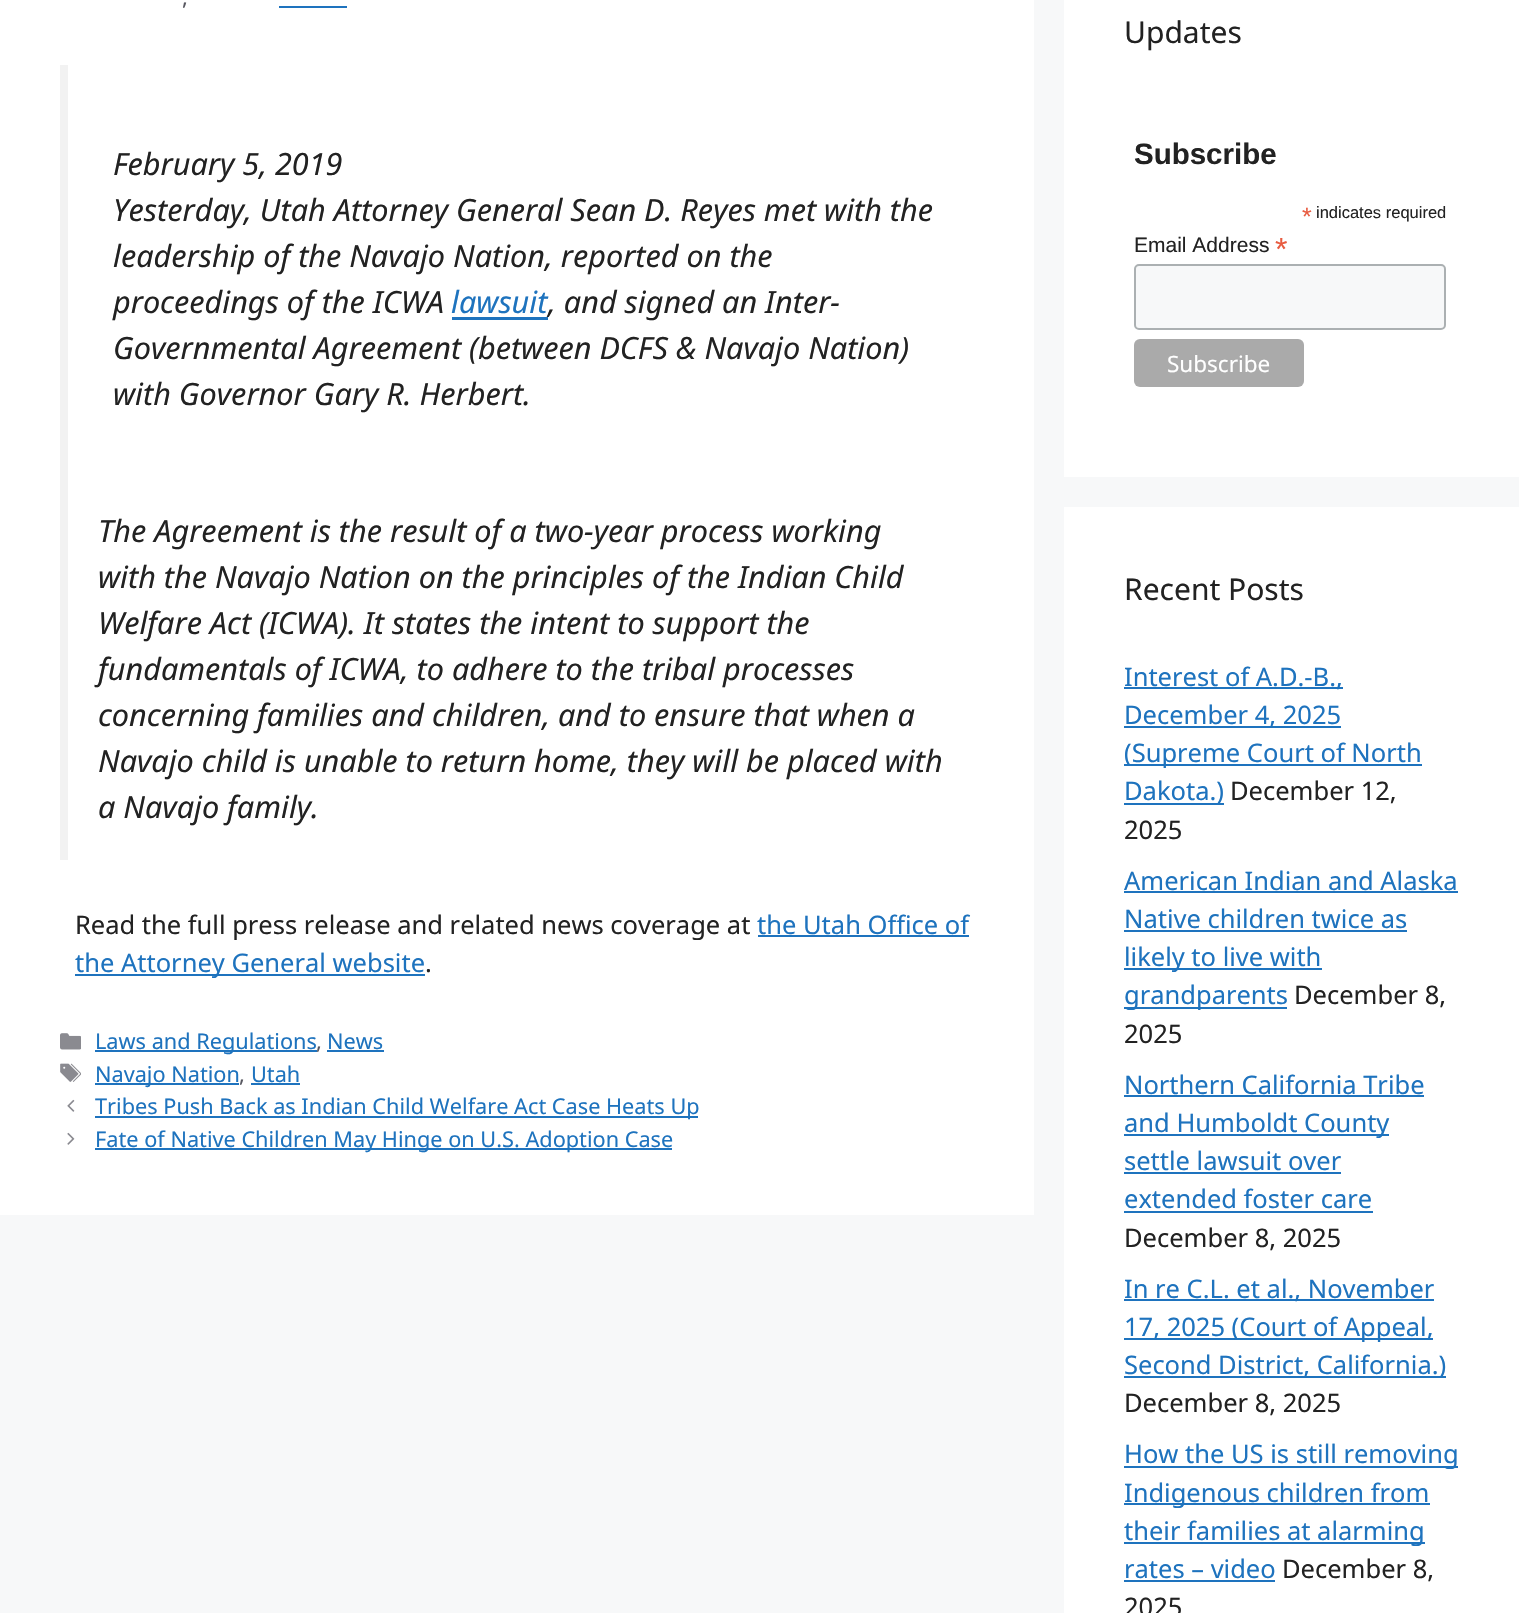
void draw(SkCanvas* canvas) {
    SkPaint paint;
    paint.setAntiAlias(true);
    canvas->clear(0xFFF7F8F9);
    paint.setColor(0xFFFFFFFF);
    canvas->drawRect(SkRect::MakeXYWH(0, 0, 1034, 1215), paint);
    SkFont font1(fontMgr->matchFamilyStyle("Noto Sans", SkFontStyle::Normal()), 21.7f);
    font1.setSubpixel(true);
    paint.setColor(0xFF575760);
    canvas->drawString(",", 182, 5, font1, paint);
    paint.setColor(0xFF1E73BE);
    canvas->drawRect(SkRect::MakeXYWH(279, 6, 68, 2), paint);
    paint.setColor(0xFFF2F2F2);
    canvas->drawRect(SkRect::MakeXYWH(60, 65, 8, 795), paint);
    SkFont font2(fontMgr->matchFamilyStyle("Noto Sans", SkFontStyle::Italic()), 30.6f);
    font2.setSubpixel(true);
    paint.setColor(0xFF222222);
    canvas->drawString("February 5, 2019", 113, 175, font2, paint);
    canvas->drawString("Yesterday, Utah Attorney General Sean D. Reyes met with the", 113, 221, font2, paint);
    canvas->drawString("leadership of the Navajo Nation, reported on the", 113, 267, font2, paint);
    canvas->drawString("proceedings of the ICWA", 113, 313, font2, paint);
    paint.setColor(0xFF1E73BE);
    canvas->drawString("lawsuit", 451, 313, font2, paint);
    canvas->drawRect(SkRect::MakeXYWH(452, 317, 96, 3), paint);
    paint.setColor(0xFF222222);
    canvas->drawString(", and signed an Inter-", 548, 313, font2, paint);
    canvas->drawString("Governmental Agreement (between DCFS & Navajo Nation)", 113, 359, font2, paint);
    canvas->drawString("with Governor Gary R. Herbert.", 113, 405, font2, paint);
    canvas->drawString("The Agreement is the result of a two-year process working", 98, 542, font2, paint);
    canvas->drawString("with the Navajo Nation on the principles of the Indian Child", 98, 588, font2, paint);
    canvas->drawString("Welfare Act (ICWA). It states the intent to support the", 98, 634, font2, paint);
    canvas->drawString("fundamentals of ICWA, to adhere to the tribal processes", 98, 680, font2, paint);
    canvas->drawString("concerning families and children, and to ensure that when a", 98, 726, font2, paint);
    canvas->drawString("Navajo child is unable to return home, they will be placed with", 98, 772, font2, paint);
    canvas->drawString("a Navajo family.", 98, 818, font2, paint);
    SkFont font3(fontMgr->matchFamilyStyle("Noto Sans", SkFontStyle::Normal()), 25.5f);
    font3.setSubpixel(true);
    canvas->drawString("Read the full press release and related news coverage at", 75, 934, font3, paint);
    paint.setColor(0xFF1E73BE);
    canvas->drawString("the Utah Office of", 757, 934, font3, paint);
    canvas->drawRect(SkRect::MakeXYWH(758, 935, 211, 2), paint);
    canvas->drawRect(SkRect::MakeXYWH(75, 974, 350, 2), paint);
    canvas->drawString("the Attorney General website", 75, 972, font3, paint);
    paint.setColor(0xFF222222);
    canvas->drawString(".", 425, 972, font3, paint);
    canvas->drawImageRect(SkImages::DeferredFromEncodedData(SkData::MakeFromFileName("img1.png")), SkRect::MakeXYWH(60, 1033, 21, 17), SkSamplingOptions());
    paint.setColor(0xFF1E73BE);
    canvas->drawRect(SkRect::MakeXYWH(95, 1050, 222, 2), paint);
    canvas->drawString("Laws and Regulations", 95, 1049, font1, paint);
    paint.setColor(0xFF575760);
    canvas->drawString(",", 316, 1049, font1, paint);
    paint.setColor(0xFF1E73BE);
    canvas->drawString("News", 327, 1049, font1, paint);
    canvas->drawRect(SkRect::MakeXYWH(327, 1050, 57, 2), paint);
    canvas->drawImageRect(SkImages::DeferredFromEncodedData(SkData::MakeFromFileName("img2.png")), SkRect::MakeXYWH(60, 1063, 21, 19), SkSamplingOptions());
    canvas->drawRect(SkRect::MakeXYWH(95, 1083, 144, 2), paint);
    canvas->drawString("Navajo Nation", 95, 1082, font1, paint);
    paint.setColor(0xFF575760);
    canvas->drawString(",", 239, 1082, font1, paint);
    paint.setColor(0xFF1E73BE);
    canvas->drawString("Utah", 251, 1082, font1, paint);
    canvas->drawRect(SkRect::MakeXYWH(251, 1083, 49, 2), paint);
    canvas->drawImageRect(SkImages::DeferredFromEncodedData(SkData::MakeFromFileName("img3.png")), SkRect::MakeXYWH(67, 1099, 8, 13), SkSamplingOptions());
    canvas->drawRect(SkRect::MakeXYWH(95, 1116, 603, 2), paint);
    canvas->drawString("Tribes Push Back as Indian Child Welfare Act Case Heats Up", 95, 1114, font1, paint);
    canvas->drawImageRect(SkImages::DeferredFromEncodedData(SkData::MakeFromFileName("img4.png")), SkRect::MakeXYWH(67, 1132, 8, 13), SkSamplingOptions());
    canvas->drawRect(SkRect::MakeXYWH(95, 1148, 577, 2), paint);
    canvas->drawString("Fate of Native Children May Hinge on U.S. Adoption Case", 95, 1147, font1, paint);
    paint.setColor(0xFFFFFFFF);
    canvas->drawRect(SkRect::MakeXYWH(1064, 0, 455, 477), paint);
    SkFont font4(fontMgr->matchFamilyStyle("Noto Sans", SkFontStyle::Normal()), 30);
    font4.setSubpixel(true);
    paint.setColor(0xFF222222);
    canvas->drawString("Updates", 1124, 43, font4, paint);
    SkFont font5(fontMgr->matchFamilyStyle("Liberation Sans", SkFontStyle::Bold()), 29.5f);
    font5.setSubpixel(true);
    canvas->drawString("Subscribe", 1134, 164, font5, paint);
    SkFont font6(fontMgr->matchFamilyStyle("Liberation Sans", SkFontStyle::Normal()), 25);
    font6.setSubpixel(true);
    paint.setColor(0xFFE85C41);
    canvas->drawString("*", 1302, 225, font6, paint);
    SkFont font7(fontMgr->matchFamilyStyle("Liberation Sans", SkFontStyle::Normal()), 16.5f);
    font7.setSubpixel(true);
    paint.setColor(0xFF222222);
    canvas->drawString("indicates required", 1316, 218, font7, paint);
    SkFont font8(fontMgr->matchFamilyStyle("Liberation Sans", SkFontStyle::Normal()), 21);
    font8.setSubpixel(true);
    canvas->drawString("Email Address", 1134, 252, font8, paint);
    SkFont font9(fontMgr->matchFamilyStyle("Liberation Sans", SkFontStyle::Normal()), 32);
    font9.setSubpixel(true);
    paint.setColor(0xFFE85C41);
    canvas->drawString("*", 1275, 260, font9, paint);
    paint.setColor(0xFFF7F8F9);
    canvas->drawRoundRect(SkRect::MakeXYWH(1135, 265, 310, 64), 4, 4, paint);
    paint.setStyle(SkPaint::kStroke_Style);
    paint.setStrokeWidth(2);
    paint.setColor(0xFFABB0B2);
    canvas->drawRoundRect(SkRect::MakeXYWH(1135, 265, 310, 64), 4, 4, paint);
    paint.setStyle(SkPaint::kFill_Style);
    paint.setColor(0xFFAAAAAA);
    canvas->drawRoundRect(SkRect::MakeXYWH(1134, 339, 170, 48), 6, 6, paint);
    SkFont font10(fontMgr->matchFamilyStyle("Noto Sans", SkFontStyle::Normal()), 22.5f);
    font10.setSubpixel(true);
    paint.setColor(0xFFFFFFFF);
    canvas->drawString("Subscribe", 1167, 372, font10, paint);
    canvas->drawRect(SkRect::MakeXYWH(1064, 507, 455, 1106), paint);
    paint.setColor(0xFF222222);
    canvas->drawString("Recent Posts", 1124, 600, font4, paint);
    paint.setColor(0xFF1E73BE);
    canvas->drawRect(SkRect::MakeXYWH(1124, 687, 219, 2), paint);
    canvas->drawString("Interest of A.D.-B.,", 1124, 686, font3, paint);
    canvas->drawRect(SkRect::MakeXYWH(1124, 726, 217, 2), paint);
    canvas->drawString("December 4, 2025", 1124, 724, font3, paint);
    canvas->drawRect(SkRect::MakeXYWH(1124, 764, 298, 2), paint);
    canvas->drawString("(Supreme Court of North", 1124, 762, font3, paint);
    canvas->drawRect(SkRect::MakeXYWH(1124, 803, 100, 2), paint);
    canvas->drawString("Dakota.)", 1124, 800, font3, paint);
    paint.setColor(0xFF222222);
    canvas->drawString("December 12,", 1230, 800, font3, paint);
    canvas->drawString("2025", 1124, 839, font3, paint);
    paint.setColor(0xFF1E73BE);
    canvas->drawString("American Indian and Alaska", 1124, 890, font3, paint);
    canvas->drawRect(SkRect::MakeXYWH(1124, 891, 334, 2), paint);
    canvas->drawString("Native children twice as", 1124, 928, font3, paint);
    canvas->drawRect(SkRect::MakeXYWH(1124, 930, 283, 2), paint);
    canvas->drawRect(SkRect::MakeXYWH(1124, 968, 198, 2), paint);
    canvas->drawString("likely to live with", 1124, 966, font3, paint);
    canvas->drawRect(SkRect::MakeXYWH(1124, 1007, 163, 2), paint);
    canvas->drawString("grandparents", 1124, 1004, font3, paint);
    paint.setColor(0xFF222222);
    canvas->drawString("December 8,", 1294, 1004, font3, paint);
    canvas->drawString("2025", 1124, 1043, font3, paint);
    paint.setColor(0xFF1E73BE);
    canvas->drawString("Northern California Tribe", 1124, 1094, font3, paint);
    canvas->drawRect(SkRect::MakeXYWH(1124, 1095, 300, 2), paint);
    canvas->drawRect(SkRect::MakeXYWH(1124, 1134, 265, 2), paint);
    canvas->drawString("and Humboldt County", 1124, 1132, font3, paint);
    canvas->drawString("settle lawsuit over", 1124, 1170, font3, paint);
    canvas->drawRect(SkRect::MakeXYWH(1124, 1172, 217, 2), paint);
    canvas->drawString("extended foster care", 1124, 1208, font3, paint);
    canvas->drawRect(SkRect::MakeXYWH(1124, 1211, 249, 2), paint);
    paint.setColor(0xFF222222);
    canvas->drawString("December 8, 2025", 1124, 1247, font3, paint);
    paint.setColor(0xFF1E73BE);
    canvas->drawRect(SkRect::MakeXYWH(1124, 1299, 310, 2), paint);
    canvas->drawString("In re C.L. et al., November", 1124, 1298, font3, paint);
    canvas->drawRect(SkRect::MakeXYWH(1124, 1338, 309, 2), paint);
    canvas->drawString("17, 2025 (Court of Appeal,", 1124, 1336, font3, paint);
    canvas->drawRect(SkRect::MakeXYWH(1124, 1376, 322, 2), paint);
    canvas->drawString("Second District, California.)", 1124, 1374, font3, paint);
    paint.setColor(0xFF222222);
    canvas->drawString("December 8, 2025", 1124, 1412, font3, paint);
    paint.setColor(0xFF1E73BE);
    canvas->drawRect(SkRect::MakeXYWH(1124, 1466, 334, 2), paint);
    canvas->drawString("How the US is still removing", 1124, 1463, font3, paint);
    canvas->drawRect(SkRect::MakeXYWH(1124, 1503, 306, 2), paint);
    canvas->drawString("Indigenous children from", 1124, 1502, font3, paint);
    canvas->drawRect(SkRect::MakeXYWH(1124, 1542, 301, 2), paint);
    canvas->drawString("their families at alarming", 1124, 1540, font3, paint);
    canvas->drawString("rates – video", 1124, 1578, font3, paint);
    canvas->drawRect(SkRect::MakeXYWH(1124, 1580, 151, 2), paint);
    paint.setColor(0xFF222222);
    canvas->drawString("December 8,", 1282, 1578, font3, paint);
    canvas->drawString("2025", 1124, 1616, font3, paint);
}
